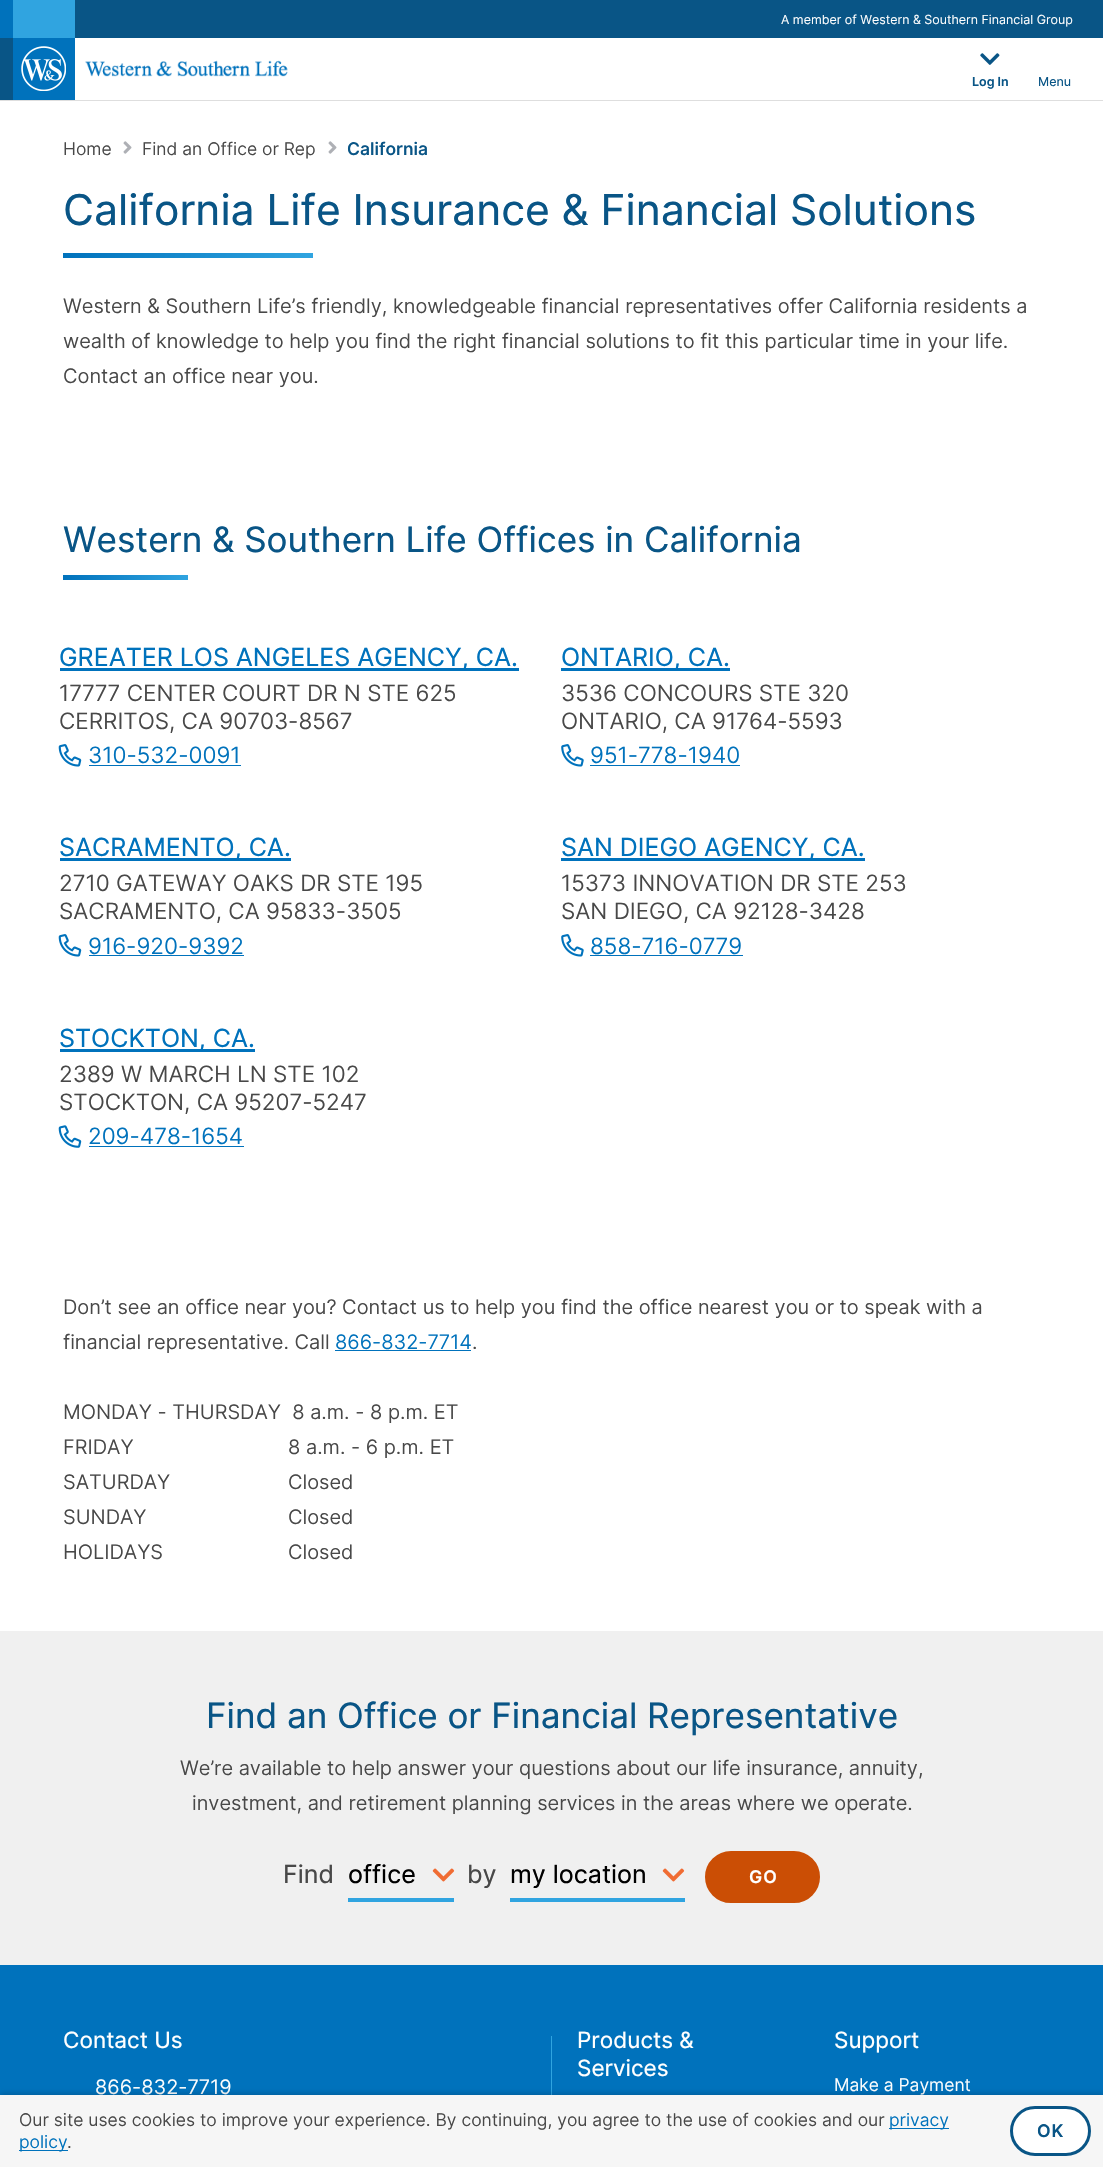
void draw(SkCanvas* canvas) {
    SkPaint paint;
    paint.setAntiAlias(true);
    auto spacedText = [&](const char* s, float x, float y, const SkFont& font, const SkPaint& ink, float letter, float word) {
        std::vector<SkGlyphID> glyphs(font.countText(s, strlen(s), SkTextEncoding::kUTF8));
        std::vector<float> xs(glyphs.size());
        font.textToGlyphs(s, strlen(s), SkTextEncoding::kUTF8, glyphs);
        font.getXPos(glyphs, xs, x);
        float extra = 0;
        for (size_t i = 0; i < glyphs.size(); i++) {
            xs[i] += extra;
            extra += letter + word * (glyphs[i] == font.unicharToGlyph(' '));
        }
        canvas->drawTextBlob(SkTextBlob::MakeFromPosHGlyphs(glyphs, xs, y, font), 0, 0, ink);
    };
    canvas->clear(0xFFFFFFFF);
    paint.setColor(0xFF095586);
    canvas->drawRect(SkRect::MakeXYWH(75, 0, 1028, 38), paint);
    paint.setColor(0xFFDEDEDE);
    canvas->drawRect(SkRect::MakeXYWH(0, 100, 1103, 1), paint);
    paint.setColor(0xFF30A4E0);
    canvas->drawRect(SkRect::MakeXYWH(13, 0, 62, 38), paint);
    paint.setColor(0xFF0072BC);
    canvas->drawRect(SkRect::MakeXYWH(0, 0, 13, 38), paint);
    SkFont font1(fontMgr->matchFamilyStyle("Inter", SkFontStyle::Italic()), 12.5f);
    font1.setSubpixel(true);
    paint.setColor(0xFFFFFFFF);
    canvas->drawString("A member of Western & Southern Financial Group", 781, 24, font1, paint);
    paint.setColor(0xFF095586);
    canvas->drawRect(SkRect::MakeXYWH(0, 38, 13, 62), paint);
    paint.setColor(0xFF0072BC);
    canvas->drawRect(SkRect::MakeXYWH(13, 38, 62, 62), paint);
    canvas->drawImageRect(SkImages::DeferredFromEncodedData(SkData::MakeFromFileName("img1.png")), SkRect::MakeXYWH(21, 46, 45, 45), SkSamplingOptions());
    canvas->drawImageRect(SkImages::DeferredFromEncodedData(SkData::MakeFromFileName("img2.png")), SkRect::MakeXYWH(85, 60, 203, 17), SkSamplingOptions());
    canvas->drawImageRect(SkImages::DeferredFromEncodedData(SkData::MakeFromFileName("img3.png")), SkRect::MakeXYWH(980, 53, 20, 12), SkSamplingOptions());
    SkFont font2(fontMgr->matchFamilyStyle("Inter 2", SkFontStyle(600, SkFontStyle::kNormal_Width, SkFontStyle::kItalic_Slant)), 12.5f);
    font2.setSubpixel(true);
    paint.setColor(0xFF095586);
    canvas->drawString("Log In", 972, 86, font2, paint);
    SkFont font3(fontMgr->matchFamilyStyle("Inter 2", SkFontStyle::Italic()), 12.5f);
    font3.setSubpixel(true);
    canvas->drawString("Menu", 1038, 86, font3, paint);
    SkFont font4(fontMgr->matchFamilyStyle("Inter", SkFontStyle::Italic()), 17.5f);
    font4.setSubpixel(true);
    paint.setColor(0xFF484848);
    canvas->drawString("Home", 63, 155, font4, paint);
    canvas->drawImageRect(SkImages::DeferredFromEncodedData(SkData::MakeFromFileName("img4.png")), SkRect::MakeXYWH(123, 141, 9, 13), SkSamplingOptions());
    canvas->drawString("Find an Office or Rep", 142, 155, font4, paint);
    canvas->drawImageRect(SkImages::DeferredFromEncodedData(SkData::MakeFromFileName("img4.png")), SkRect::MakeXYWH(328, 141, 9, 13), SkSamplingOptions());
    SkFont font5(fontMgr->matchFamilyStyle("Inter", SkFontStyle(600, SkFontStyle::kNormal_Width, SkFontStyle::kItalic_Slant)), 17.5f);
    font5.setSubpixel(true);
    paint.setColor(0xFF095586);
    canvas->drawString("California", 347, 155, font5, paint);
    SkFont font6(fontMgr->matchFamilyStyle("Inter 2", SkFontStyle::Italic()), 42.5f);
    font6.setSubpixel(true);
    canvas->drawString("California Life Insurance & Financial Solutions", 63, 225, font6, paint);
    {
        const SkColor colors[] = {0xFF0072BC, 0xFF30A4E0};
        const float stops[] = {0, 1};
        const SkPoint ends[] = {{63, 255}, {313, 255}};
        paint.setShader(SkGradientShader::MakeLinear(ends, colors, stops, 2, SkTileMode::kClamp));
        paint.setAlpha(255);
    }
    canvas->drawRect(SkRect::MakeXYWH(63, 253, 250, 5), paint);
    SkFont font7(fontMgr->matchFamilyStyle("Inter", SkFontStyle::Italic()), 20);
    font7.setSubpixel(true);
    paint.setShader(nullptr);
    paint.setColor(0xFF484848);
    canvas->drawString("Western & Southern Life’s friendly, knowledgeable financial representatives offer California residents a", 63, 313, font7, paint);
    canvas->drawString("wealth of knowledge to help you find the right financial solutions to fit this particular time in your life.", 63, 348, font7, paint);
    canvas->drawString("Contact an office near you.", 63, 383, font7, paint);
    SkFont font8(fontMgr->matchFamilyStyle("Inter 2", SkFontStyle::Italic()), 35);
    font8.setSubpixel(true);
    paint.setColor(0xFF095586);
    canvas->drawString("Western & Southern Life Offices in California", 63, 552, font8, paint);
    {
        const SkColor colors[] = {0xFF0072BC, 0xFF30A4E0};
        const float stops[] = {0, 1};
        const SkPoint ends[] = {{63, 578}, {188, 578}};
        paint.setShader(SkGradientShader::MakeLinear(ends, colors, stops, 2, SkTileMode::kClamp));
        paint.setAlpha(255);
    }
    canvas->drawRect(SkRect::MakeXYWH(63, 575, 125, 5), paint);
    paint.setShader(nullptr);
    paint.setColor(0xFF0072BC);
    canvas->drawRect(SkRect::MakeXYWH(60, 668, 459, 3), paint);
    SkFont font9(fontMgr->matchFamilyStyle("Inter 2", SkFontStyle::Italic()), 25);
    font9.setSubpixel(true);
    canvas->drawString("GREATER LOS ANGELES AGENCY, CA.", 59, 666, font9, paint);
    SkFont font10(fontMgr->matchFamilyStyle("Inter", SkFontStyle::Italic()), 22.5f);
    font10.setSubpixel(true);
    paint.setColor(0xFF484848);
    canvas->drawString("17777 CENTER COURT DR N STE 625", 59, 701, font10, paint);
    canvas->drawString("CERRITOS, CA 90703-8567", 59, 729, font10, paint);
    canvas->drawImageRect(SkImages::DeferredFromEncodedData(SkData::MakeFromFileName("img5.png")), SkRect::MakeXYWH(58, 744, 24, 23), SkSamplingOptions());
    paint.setColor(0xFF0072BC);
    canvas->drawString("310-532-0091", 88, 763, font10, paint);
    canvas->drawRect(SkRect::MakeXYWH(89, 765, 152, 1), paint);
    canvas->drawRect(SkRect::MakeXYWH(561, 668, 169, 3), paint);
    canvas->drawString("ONTARIO, CA.", 561, 666, font9, paint);
    paint.setColor(0xFF484848);
    canvas->drawString("3536 CONCOURS STE 320", 561, 701, font10, paint);
    canvas->drawString("ONTARIO, CA 91764-5593", 561, 729, font10, paint);
    canvas->drawImageRect(SkImages::DeferredFromEncodedData(SkData::MakeFromFileName("img6.png")), SkRect::MakeXYWH(561, 744, 23, 23), SkSamplingOptions());
    paint.setColor(0xFF0072BC);
    canvas->drawString("951-778-1940", 590, 763, font10, paint);
    canvas->drawRect(SkRect::MakeXYWH(590, 765, 150, 1), paint);
    canvas->drawRect(SkRect::MakeXYWH(60, 858, 231, 3), paint);
    canvas->drawString("SACRAMENTO, CA.", 59, 856, font9, paint);
    paint.setColor(0xFF484848);
    canvas->drawString("2710 GATEWAY OAKS DR STE 195", 59, 891, font10, paint);
    canvas->drawString("SACRAMENTO, CA 95833-3505", 59, 919, font10, paint);
    canvas->drawImageRect(SkImages::DeferredFromEncodedData(SkData::MakeFromFileName("img5.png")), SkRect::MakeXYWH(58, 934, 24, 23), SkSamplingOptions());
    paint.setColor(0xFF0072BC);
    canvas->drawString("916-920-9392", 88, 954, font10, paint);
    canvas->drawRect(SkRect::MakeXYWH(89, 955, 155, 1), paint);
    canvas->drawRect(SkRect::MakeXYWH(561, 858, 304, 3), paint);
    canvas->drawString("SAN DIEGO AGENCY, CA.", 561, 856, font9, paint);
    paint.setColor(0xFF484848);
    canvas->drawString("15373 INNOVATION DR STE 253", 561, 891, font10, paint);
    canvas->drawString("SAN DIEGO, CA 92128-3428", 561, 919, font10, paint);
    canvas->drawImageRect(SkImages::DeferredFromEncodedData(SkData::MakeFromFileName("img6.png")), SkRect::MakeXYWH(561, 934, 23, 23), SkSamplingOptions());
    paint.setColor(0xFF0072BC);
    canvas->drawString("858-716-0779", 590, 954, font10, paint);
    canvas->drawRect(SkRect::MakeXYWH(590, 955, 153, 1), paint);
    canvas->drawRect(SkRect::MakeXYWH(60, 1049, 195, 3), paint);
    canvas->drawString("STOCKTON, CA.", 59, 1047, font9, paint);
    paint.setColor(0xFF484848);
    canvas->drawString("2389 W MARCH LN STE 102", 59, 1082, font10, paint);
    canvas->drawString("STOCKTON, CA 95207-5247", 59, 1110, font10, paint);
    canvas->drawImageRect(SkImages::DeferredFromEncodedData(SkData::MakeFromFileName("img7.png")), SkRect::MakeXYWH(58, 1125, 24, 23), SkSamplingOptions());
    paint.setColor(0xFF0072BC);
    canvas->drawString("209-478-1654", 88, 1144, font10, paint);
    canvas->drawRect(SkRect::MakeXYWH(89, 1146, 155, 1), paint);
    paint.setColor(0xFF484848);
    canvas->drawString("Don’t see an office near you? Contact us to help you find the office nearest you or to speak with a", 63, 1314, font7, paint);
    canvas->drawString("financial representative. Call", 63, 1349, font7, paint);
    paint.setColor(0xFF0072BC);
    canvas->drawString("866-832-7714", 335, 1349, font7, paint);
    canvas->drawRect(SkRect::MakeXYWH(335, 1350, 136, 1), paint);
    paint.setColor(0xFF484848);
    canvas->drawString(".", 472, 1349, font7, paint);
    canvas->drawString("MONDAY - THURSDAY  8 a.m. - 8 p.m. ET", 63, 1419, font7, paint);
    canvas->drawString("FRIDAY", 63, 1454, font7, paint);
    canvas->drawString("8 a.m. - 6 p.m. ET", 288, 1454, font7, paint);
    canvas->drawString("SATURDAY", 63, 1489, font7, paint);
    canvas->drawString("Closed", 288, 1489, font7, paint);
    canvas->drawString("SUNDAY", 63, 1524, font7, paint);
    canvas->drawString("Closed", 288, 1524, font7, paint);
    canvas->drawString("HOLIDAYS", 63, 1559, font7, paint);
    canvas->drawString("Closed", 288, 1559, font7, paint);
    paint.setColor(0xFFF0F0F0);
    canvas->drawRect(SkRect::MakeXYWH(0, 1631, 1103, 334), paint);
    paint.setColor(0xFF095586);
    canvas->drawString("Find an Office or Financial Representative", 206, 1728, font8, paint);
    paint.setColor(0xFF484848);
    canvas->drawString("We’re available to help answer your questions about our life insurance, annuity,", 180, 1775, font7, paint);
    canvas->drawString("investment, and retirement planning services in the areas where we operate.", 192, 1810, font7, paint);
    canvas->drawString("Find", 283, 1883, font9, paint);
    paint.setColor(0xFF000000);
    canvas->drawString("office", 348, 1883, font9, paint);
    canvas->drawImageRect(SkImages::DeferredFromEncodedData(SkData::MakeFromFileName("img8.png")), SkRect::MakeXYWH(432, 1868, 23, 14), SkSamplingOptions());
    paint.setColor(0xFF30A4E0);
    canvas->drawRect(SkRect::MakeXYWH(348, 1898, 106, 4), paint);
    paint.setColor(0xFF484848);
    canvas->drawString("by", 467, 1883, font9, paint);
    paint.setColor(0xFF000000);
    canvas->drawString("my location", 510, 1883, font9, paint);
    canvas->drawImageRect(SkImages::DeferredFromEncodedData(SkData::MakeFromFileName("img8.png")), SkRect::MakeXYWH(662, 1868, 23, 14), SkSamplingOptions());
    paint.setColor(0xFF30A4E0);
    canvas->drawRect(SkRect::MakeXYWH(510, 1898, 175, 4), paint);
    paint.setColor(0xFFCB4E05);
    canvas->drawRoundRect(SkRect::MakeXYWH(706.5f, 1852.5f, 112, 49), 24.5f, 24.5f, paint);
    paint.setStyle(SkPaint::kStroke_Style);
    paint.setStrokeWidth(3);
    canvas->drawRoundRect(SkRect::MakeXYWH(706.5f, 1852.5f, 112, 49), 24.5f, 24.5f, paint);
    SkFont font11(fontMgr->matchFamilyStyle("Inter 2", SkFontStyle(600, SkFontStyle::kNormal_Width, SkFontStyle::kItalic_Slant)), 17.5f);
    font11.setSubpixel(true);
    paint.setStyle(SkPaint::kFill_Style);
    paint.setColor(0xFFFFFFFF);
    spacedText("GO", 749, 1883, font11, paint, 1, 0);
    paint.setColor(0xFF0072BC);
    canvas->drawRect(SkRect::MakeXYWH(0, 1965, 1103, 130), paint);
    SkFont font12(fontMgr->matchFamilyStyle("Inter 2", SkFontStyle::Italic()), 22.5f);
    font12.setSubpixel(true);
    paint.setColor(0xFFFFFFFF);
    canvas->drawString("Contact Us", 63, 2048, font12, paint);
    paint.setColor(0xFF30A4E0);
    canvas->drawRect(SkRect::MakeXYWH(551, 2036, 1, 59), paint);
    paint.setColor(0xFFFFFFFF);
    canvas->drawString("866-832-7719", 95, 2094, font7, paint);
    canvas->drawString("Products &", 577, 2048, font12, paint);
    canvas->drawString("Services", 577, 2076, font12, paint);
    canvas->drawString("Support", 834, 2048, font12, paint);
    canvas->drawString("Make a Payment", 834, 2091, font4, paint);
    paint.setColor(0x26000000);
    paint.setMaskFilter(SkMaskFilter::MakeBlur(kNormal_SkBlurStyle, 2.5f));
    canvas->drawRect(SkRect::MakeXYWH(0, 2093, 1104, 72), paint);
    paint.setMaskFilter(nullptr);
    paint.setColor(0xFFF6F6F6);
    canvas->drawRect(SkRect::MakeXYWH(0, 2095, 1103, 72), paint);
    paint.setColor(0xFF484848);
    canvas->drawString("Our site uses cookies to improve your experience. By continuing, you agree to the use of cookies and our", 19, 2126, font4, paint);
    paint.setColor(0xFF0072BC);
    canvas->drawRect(SkRect::MakeXYWH(889, 2128, 60, 1), paint);
    canvas->drawString("privacy", 889, 2126, font4, paint);
    canvas->drawRect(SkRect::MakeXYWH(19, 2150, 49, 1), paint);
    canvas->drawString("policy", 19, 2148, font4, paint);
    paint.setColor(0xFF484848);
    canvas->drawString(".", 67, 2148, font4, paint);
    paint.setColor(0xFFFFFFFF);
    canvas->drawRoundRect(SkRect::MakeXYWH(1011.5f, 2107.5f, 78, 47), 23.5f, 23.5f, paint);
    paint.setStyle(SkPaint::kStroke_Style);
    paint.setColor(0xFF095586);
    canvas->drawRoundRect(SkRect::MakeXYWH(1011.5f, 2107.5f, 78, 47), 23.5f, 23.5f, paint);
    paint.setStyle(SkPaint::kFill_Style);
    spacedText("OK", 1037, 2137, font11, paint, 1, 0);
}
